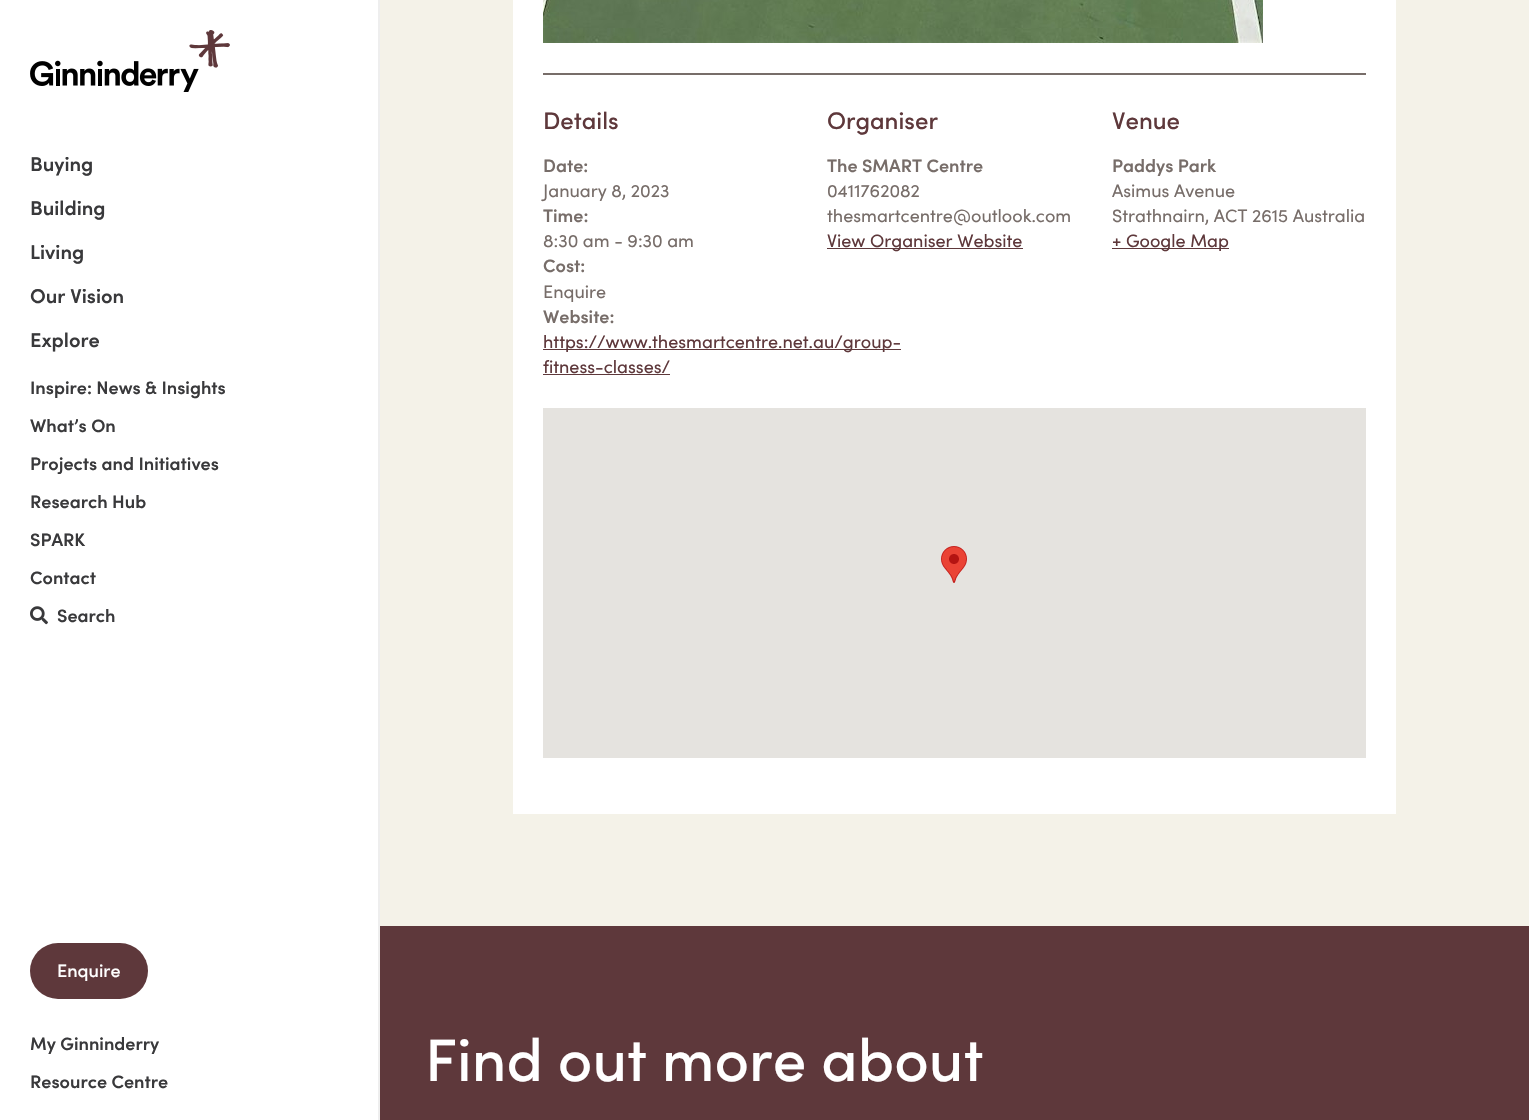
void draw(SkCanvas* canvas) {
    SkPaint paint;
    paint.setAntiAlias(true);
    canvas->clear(0xFF5E383B);
    paint.setColor(0xFFFFFFFF);
    canvas->drawRect(SkRect::MakeXYWH(0, 0, 378, 1120), paint);
    paint.setColor(0xFFEEEEEE);
    canvas->drawRect(SkRect::MakeXYWH(378, 0, 2, 1120), paint);
    canvas->drawImageRect(SkImages::DeferredFromEncodedData(SkData::MakeFromFileName("img1.png")), SkRect::MakeXYWH(30, 30, 200, 62), SkSamplingOptions());
    SkFont font1(fontMgr->matchFamilyStyle("Sofia", SkFontStyle(600, SkFontStyle::kNormal_Width, SkFontStyle::kUpright_Slant)), 20);
    font1.setSubpixel(true);
    paint.setColor(0xFF39393B);
    canvas->drawString("Buying", 30, 171, font1, paint);
    canvas->drawString("Building", 30, 215, font1, paint);
    canvas->drawString("Living", 30, 259, font1, paint);
    canvas->drawString("Our Vision", 30, 303, font1, paint);
    canvas->drawString("Explore", 30, 347, font1, paint);
    SkFont font2(fontMgr->matchFamilyStyle("Sofia", SkFontStyle(600, SkFontStyle::kNormal_Width, SkFontStyle::kUpright_Slant)), 18);
    font2.setSubpixel(true);
    canvas->drawString("Inspire: News & Insights", 30, 394, font2, paint);
    canvas->drawString("What’s On", 30, 432, font2, paint);
    canvas->drawString("Projects and Initiatives", 30, 470, font2, paint);
    canvas->drawString("Research Hub", 30, 508, font2, paint);
    canvas->drawString("SPARK", 30, 546, font2, paint);
    canvas->drawString("Contact", 30, 584, font2, paint);
    canvas->drawImageRect(SkImages::DeferredFromEncodedData(SkData::MakeFromFileName("img2.png")), SkRect::MakeXYWH(30, 606, 18, 19), SkSamplingOptions());
    canvas->drawString("Search", 57, 622, font2, paint);
    paint.setColor(0xFF5E383B);
    canvas->drawRoundRect(SkRect::MakeXYWH(30, 943, 118, 56), 28, 28, paint);
    SkFont font3(fontMgr->matchFamilyStyle("Sofia", SkFontStyle(500, SkFontStyle::kNormal_Width, SkFontStyle::kUpright_Slant)), 18);
    font3.setSubpixel(true);
    paint.setColor(0xFFFFFFFF);
    canvas->drawString("Enquire", 57, 977, font3, paint);
    paint.setColor(0xFF39393B);
    canvas->drawString("My Ginninderry", 30, 1050, font2, paint);
    canvas->drawString("Resource Centre", 30, 1088, font2, paint);
    paint.setColor(0xFFF4F2E8);
    canvas->drawRect(SkRect::MakeXYWH(380, 0, 1149, 926), paint);
    paint.setColor(0xFFFFFFFF);
    canvas->drawRect(SkRect::MakeXYWH(513, 0, 883, 814), paint);
    canvas->drawImageRect(SkImages::DeferredFromEncodedData(SkData::MakeFromFileName("img3.png")), SkRect::MakeXYWH(543, 0, 720, 43), SkSamplingOptions());
    paint.setColor(0xFF776D69);
    canvas->drawRect(SkRect::MakeXYWH(543, 73, 823, 2), paint);
    SkFont font4(fontMgr->matchFamilyStyle("Sofia", SkFontStyle(500, SkFontStyle::kNormal_Width, SkFontStyle::kUpright_Slant)), 24);
    font4.setSubpixel(true);
    paint.setColor(0xFF5E383B);
    canvas->drawString("Details", 543, 129, font4, paint);
    paint.setColor(0xFF776D69);
    canvas->drawString("Date:", 543, 172, font2, paint);
    SkFont font5(fontMgr->matchFamilyStyle("Sofia", SkFontStyle::Normal()), 18);
    font5.setSubpixel(true);
    canvas->drawString("January 8, 2023", 543, 197, font5, paint);
    canvas->drawString("Time:", 543, 222, font2, paint);
    canvas->drawString("8:30 am - 9:30 am", 543, 247, font5, paint);
    canvas->drawString("Cost:", 543, 272, font2, paint);
    canvas->drawString("Enquire", 543, 298, font5, paint);
    canvas->drawString("Website:", 543, 323, font2, paint);
    paint.setColor(0xFF5E383B);
    canvas->drawRect(SkRect::MakeXYWH(543, 349, 358, 1), paint);
    canvas->drawString("https://www.thesmartcentre.net.au/group-", 543, 348, font5, paint);
    canvas->drawString("fitness-classes/", 543, 373, font5, paint);
    canvas->drawRect(SkRect::MakeXYWH(543, 374, 127, 1), paint);
    canvas->drawString("Organiser", 827, 129, font4, paint);
    paint.setColor(0xFF776D69);
    canvas->drawString("The SMART Centre", 827, 172, font2, paint);
    canvas->drawString("0411762082", 827, 197, font5, paint);
    canvas->drawString("thesmartcentre@outlook.com", 827, 222, font5, paint);
    paint.setColor(0xFF5E383B);
    canvas->drawRect(SkRect::MakeXYWH(827, 248, 196, 1), paint);
    canvas->drawString("View Organiser Website", 827, 247, font5, paint);
    canvas->drawString("Venue", 1112, 129, font4, paint);
    paint.setColor(0xFF776D69);
    canvas->drawString("Paddys Park", 1112, 172, font2, paint);
    canvas->drawString("Asimus Avenue", 1112, 197, font5, paint);
    canvas->drawString("Strathnairn, ACT 2615 Australia", 1112, 222, font5, paint);
    paint.setColor(0xFF5E383B);
    canvas->drawRect(SkRect::MakeXYWH(1112, 248, 117, 1), paint);
    canvas->drawString("+ Google Map", 1112, 247, font5, paint);
    paint.setColor(0xFFE5E3DF);
    canvas->drawRect(SkRect::MakeXYWH(543, 408, 823, 350), paint);
    canvas->drawImageRect(SkImages::DeferredFromEncodedData(SkData::MakeFromFileName("img4.png")), SkRect::MakeXYWH(941, 546, 26, 37), SkSamplingOptions());
    SkFont font6(fontMgr->matchFamilyStyle("Sofia", SkFontStyle(500, SkFontStyle::kNormal_Width, SkFontStyle::kUpright_Slant)), 60);
    font6.setSubpixel(true);
    paint.setColor(0xFFFFFFFF);
    canvas->drawString("Find out more about", 425, 1081, font6, paint);
}
